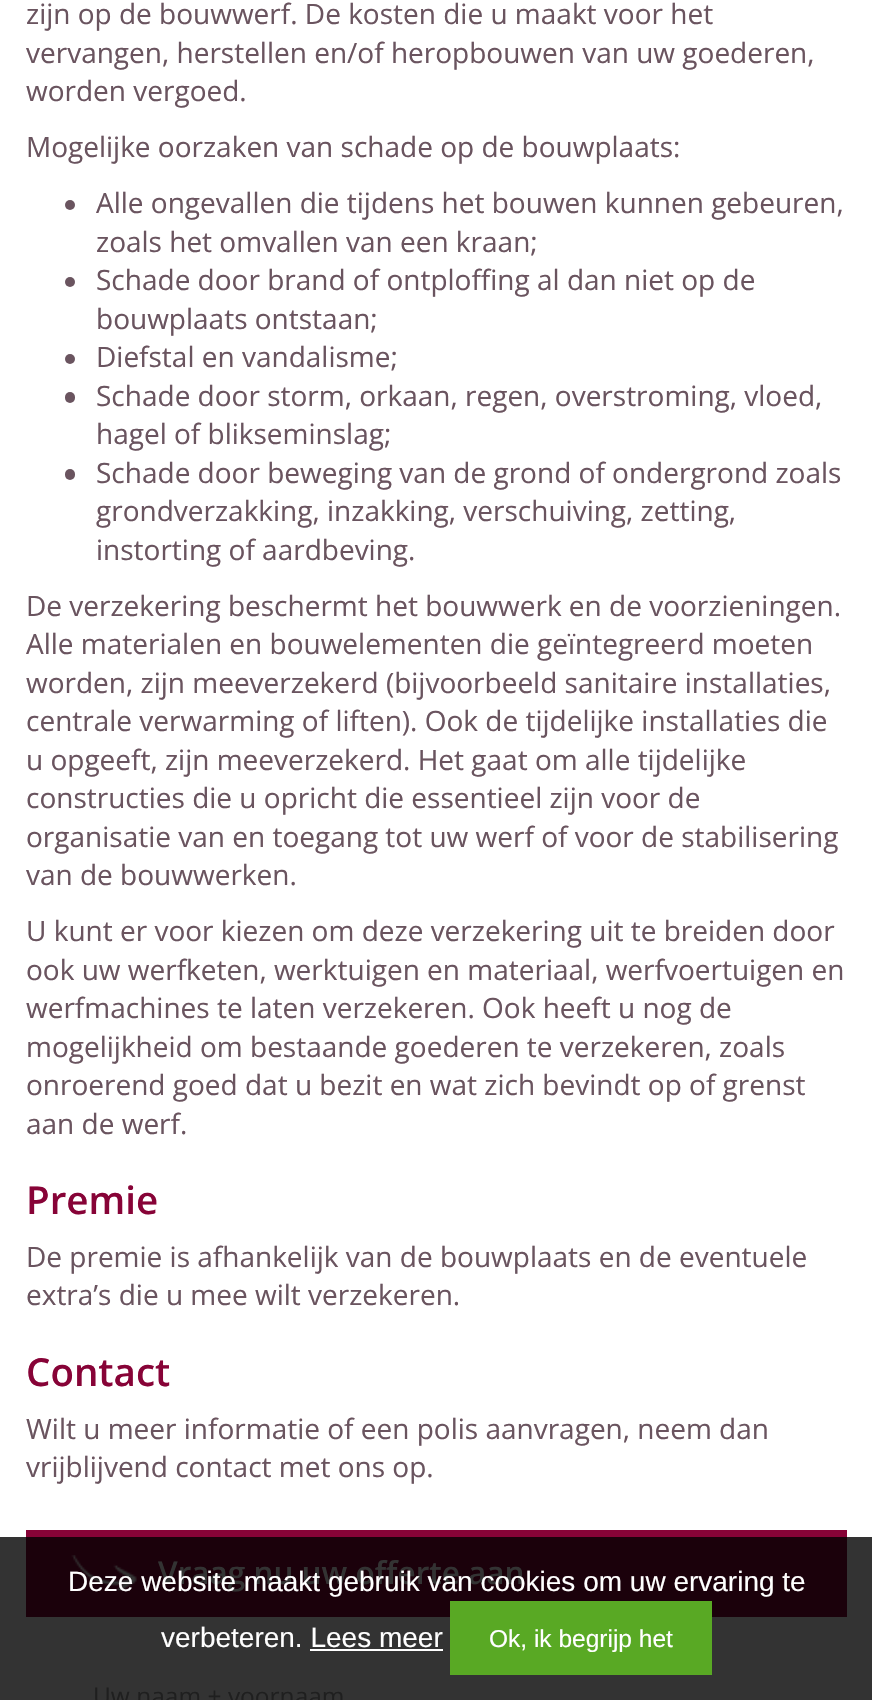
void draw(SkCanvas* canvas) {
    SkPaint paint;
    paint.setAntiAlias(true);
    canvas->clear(0xFFFFFFFF);
    paint.setColor(0xFF333333);
    canvas->drawRect(SkRect::MakeXYWH(0, 1537, 872, 163), paint);
    SkFont font1(fontMgr->matchFamilyStyle("Open Sans", SkFontStyle::Normal()), 28);
    font1.setSubpixel(true);
    paint.setColor(0xFF6A545F);
    canvas->drawString("zijn op de bouwwerf. De kosten die u maakt voor het", 26, 24, font1, paint);
    canvas->drawString("vervangen, herstellen en/of heropbouwen van uw goederen,", 26, 63, font1, paint);
    canvas->drawString("worden vergoed.", 26, 101, font1, paint);
    canvas->drawString("Mogelijke oorzaken van schade op de bouwplaats:", 26, 157, font1, paint);
    canvas->drawCircle(70, 205, 5, paint);
    canvas->drawString("Alle ongevallen die tijdens het bouwen kunnen gebeuren,", 96, 213, font1, paint);
    canvas->drawString("zoals het omvallen van een kraan;", 96, 252, font1, paint);
    canvas->drawCircle(70, 282, 5, paint);
    canvas->drawString("Schade door brand of ontploffing al dan niet op de", 96, 290, font1, paint);
    canvas->drawString("bouwplaats ontstaan;", 96, 329, font1, paint);
    canvas->drawCircle(70, 359, 5, paint);
    canvas->drawString("Diefstal en vandalisme;", 96, 367, font1, paint);
    canvas->drawRoundRect(SkRect::MakeXYWH(65, 392, 10, 11), 5, 5, paint);
    canvas->drawString("Schade door storm, orkaan, regen, overstroming, vloed,", 96, 406, font1, paint);
    canvas->drawString("hagel of blikseminslag;", 96, 444, font1, paint);
    canvas->drawRoundRect(SkRect::MakeXYWH(65, 469, 10, 11), 5, 5, paint);
    canvas->drawString("Schade door beweging van de grond of ondergrond zoals", 96, 483, font1, paint);
    canvas->drawString("grondverzakking, inzakking, verschuiving, zetting,", 96, 521, font1, paint);
    canvas->drawString("instorting of aardbeving.", 96, 560, font1, paint);
    canvas->drawString("De verzekering beschermt het bouwwerk en de voorzieningen.", 26, 616, font1, paint);
    canvas->drawString("Alle materialen en bouwelementen die geïntegreerd moeten", 26, 654, font1, paint);
    canvas->drawString("worden, zijn meeverzekerd (bijvoorbeeld sanitaire installaties,", 26, 693, font1, paint);
    canvas->drawString("centrale verwarming of liften). Ook de tijdelijke installaties die", 26, 731, font1, paint);
    canvas->drawString("u opgeeft, zijn meeverzekerd. Het gaat om alle tijdelijke", 26, 770, font1, paint);
    canvas->drawString("constructies die u opricht die essentieel zijn voor de", 26, 808, font1, paint);
    canvas->drawString("organisatie van en toegang tot uw werf of voor de stabilisering", 26, 847, font1, paint);
    canvas->drawString("van de bouwwerken.", 26, 885, font1, paint);
    canvas->drawString("U kunt er voor kiezen om deze verzekering uit te breiden door", 26, 941, font1, paint);
    canvas->drawString("ook uw werfketen, werktuigen en materiaal, werfvoertuigen en", 26, 980, font1, paint);
    canvas->drawString("werfmachines te laten verzekeren. Ook heeft u nog de", 26, 1018, font1, paint);
    canvas->drawString("mogelijkheid om bestaande goederen te verzekeren, zoals", 26, 1057, font1, paint);
    canvas->drawString("onroerend goed dat u bezit en wat zich bevindt op of grenst", 26, 1095, font1, paint);
    canvas->drawString("aan de werf.", 26, 1134, font1, paint);
    SkFont font2(fontMgr->matchFamilyStyle("Open Sans", SkFontStyle(600, SkFontStyle::kNormal_Width, SkFontStyle::kUpright_Slant)), 38.5f);
    font2.setSubpixel(true);
    paint.setColor(0xFF870337);
    canvas->drawString("Premie", 26, 1214, font2, paint);
    paint.setColor(0xFF6A545F);
    canvas->drawString("De premie is afhankelijk van de bouwplaats en de eventuele", 26, 1267, font1, paint);
    canvas->drawString("extra’s die u mee wilt verzekeren.", 26, 1305, font1, paint);
    paint.setColor(0xFF870337);
    canvas->drawString("Contact", 26, 1386, font2, paint);
    paint.setColor(0xFF6A545F);
    canvas->drawString("Wilt u meer informatie of een polis aanvragen, neem dan", 26, 1439, font1, paint);
    canvas->drawString("vrijblijvend contact met ons op.", 26, 1477, font1, paint);
    paint.setColor(0xFF870337);
    canvas->drawRect(SkRect::MakeXYWH(26, 1530, 821, 7), paint);
    paint.setColor(0xFF1B010B);
    canvas->drawRect(SkRect::MakeXYWH(26, 1537, 821, 80), paint);
    canvas->drawImageRect(SkImages::DeferredFromEncodedData(SkData::MakeFromFileName("img1.png")), SkRect::MakeXYWH(71, 1555, 66, 36), SkSamplingOptions());
    SkFont font3(fontMgr->matchFamilyStyle("Open Sans", SkFontStyle(600, SkFontStyle::kNormal_Width, SkFontStyle::kUpright_Slant)), 31.5f);
    font3.setSubpixel(true);
    paint.setColor(0xFF333333);
    canvas->drawString("Vraag nu uw offerte aan", 158, 1584, font3, paint);
    SkFont font4(fontMgr->matchFamilyStyle("Open Sans", SkFontStyle::Normal()), 24.5f);
    font4.setSubpixel(true);
    paint.setColor(0xFF1F1F1F);
    canvas->drawString("Uw naam + voornaam", 93, 1705, font4, paint);
    SkFont font5(fontMgr->matchFamilyStyle("Liberation Sans", SkFontStyle::Normal()), 28);
    font5.setSubpixel(true);
    paint.setColor(0xFFFFFFFF);
    canvas->drawString("Deze website maakt gebruik van cookies om uw ervaring te", 68, 1591, font5, paint);
    canvas->drawString("verbeteren. Lees meer", 161, 1647, font5, paint);
    paint.setColor(0xFF59A924);
    canvas->drawRect(SkRect::MakeXYWH(450, 1601, 262, 74), paint);
    SkFont font6(fontMgr->matchFamilyStyle("Liberation Sans", SkFontStyle::Normal()), 24.5f);
    font6.setSubpixel(true);
    paint.setColor(0xFFFFFFFF);
    canvas->drawString("Ok, ik begrijp het", 489, 1647, font6, paint);
    canvas->drawRect(SkRect::MakeXYWH(310, 1649, 133, 2), paint);
}
